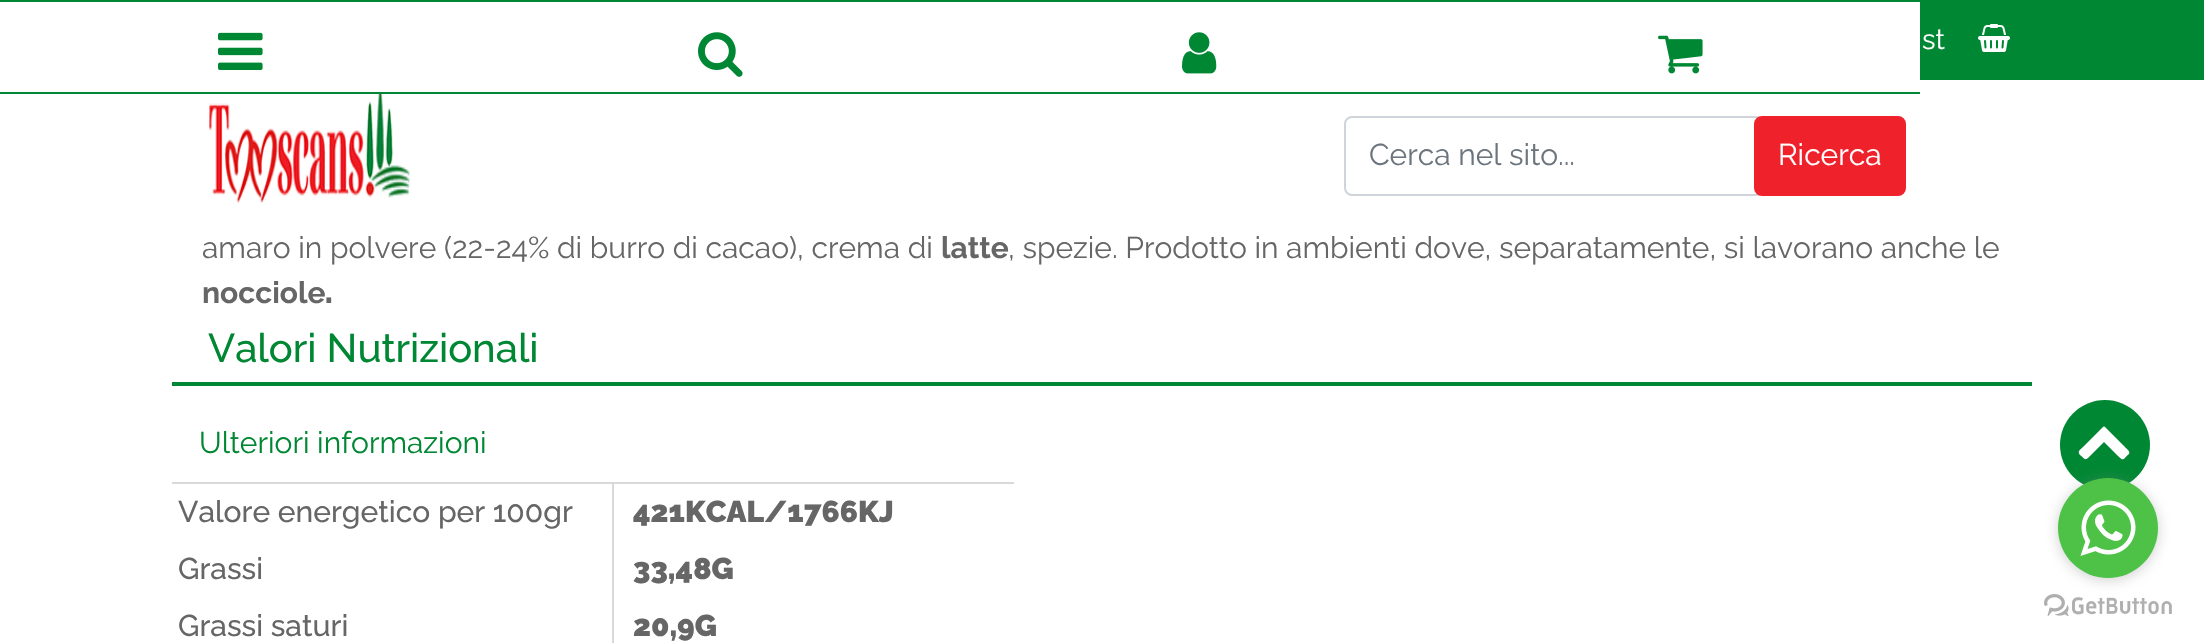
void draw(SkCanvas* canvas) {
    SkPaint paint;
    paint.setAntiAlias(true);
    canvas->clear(0xFFFFFFFF);
    paint.setColor(0xFF008733);
    canvas->drawRect(SkRect::MakeXYWH(0, 92, 1920, 2), paint);
    canvas->drawRect(SkRect::MakeXYWH(0, 0, 2204, 80), paint);
    paint.setColor(0xFFFFFFFF);
    canvas->drawRect(SkRect::MakeXYWH(0, 2, 1920, 78), paint);
    canvas->drawImageRect(SkImages::DeferredFromEncodedData(SkData::MakeFromFileName("img1.png")), SkRect::MakeXYWH(218, 32, 45, 38), SkSamplingOptions());
    canvas->drawImageRect(SkImages::DeferredFromEncodedData(SkData::MakeFromFileName("img2.png")), SkRect::MakeXYWH(698, 32, 45, 45), SkSamplingOptions());
    canvas->drawImageRect(SkImages::DeferredFromEncodedData(SkData::MakeFromFileName("img3.png")), SkRect::MakeXYWH(1182, 32, 35, 42), SkSamplingOptions());
    canvas->drawImageRect(SkImages::DeferredFromEncodedData(SkData::MakeFromFileName("img4.png")), SkRect::MakeXYWH(1658, 35, 45, 39), SkSamplingOptions());
    SkFont font1(fontMgr->matchFamilyStyle("Raleway", SkFontStyle::Normal()), 28);
    font1.setSubpixel(true);
    canvas->drawString("st", 1922, 49, font1, paint);
    canvas->drawImageRect(SkImages::DeferredFromEncodedData(SkData::MakeFromFileName("img5.png")), SkRect::MakeXYWH(1978, 24, 32, 28), SkSamplingOptions());
    canvas->drawImageRect(SkImages::DeferredFromEncodedData(SkData::MakeFromFileName("img6.png")), SkRect::MakeXYWH(209, 94, 201, 109), SkSamplingOptions());
    paint.setStyle(SkPaint::kStroke_Style);
    paint.setStrokeWidth(2);
    paint.setColor(0xFFCED4DA);
    canvas->drawRoundRect(SkRect::MakeXYWH(1345, 117, 418, 78), 7, 7, paint);
    SkFont font2(fontMgr->matchFamilyStyle("Raleway", SkFontStyle::Normal()), 30);
    font2.setSubpixel(true);
    paint.setStyle(SkPaint::kFill_Style);
    paint.setColor(0xFF6C757D);
    canvas->drawString("Cerca nel sito...", 1369, 165, font2, paint);
    paint.setColor(0xFFEF222B);
    canvas->drawRoundRect(SkRect::MakeXYWH(1755, 117, 150, 78), 7, 7, paint);
    paint.setStyle(SkPaint::kStroke_Style);
    canvas->drawRoundRect(SkRect::MakeXYWH(1755, 117, 150, 78), 7, 7, paint);
    paint.setStyle(SkPaint::kFill_Style);
    paint.setColor(0xFFFFFFFF);
    canvas->drawString("Ricerca", 1778, 165, font2, paint);
    paint.setColor(0xFF666666);
    canvas->drawString("amaro in polvere (22-24% di burro di cacao), crema di", 202, 258, font2, paint);
    SkFont font3(fontMgr->matchFamilyStyle("Raleway", SkFontStyle::Bold()), 30);
    font3.setSubpixel(true);
    canvas->drawString("latte", 941, 258, font3, paint);
    canvas->drawString(", spezie. Prodotto in ambienti dove, separatamente, si lavorano anche le", 1008, 258, font2, paint);
    canvas->drawString("nocciole", 202, 303, font3, paint);
    SkFont font4(fontMgr->matchFamilyStyle("Raleway", SkFontStyle(900, SkFontStyle::kNormal_Width, SkFontStyle::kUpright_Slant)), 30);
    font4.setSubpixel(true);
    canvas->drawString(".", 325, 303, font4, paint);
    paint.setColor(0xFF008733);
    canvas->drawRect(SkRect::MakeXYWH(172, 382, 1860, 4), paint);
    SkFont font5(fontMgr->matchFamilyStyle("Raleway", SkFontStyle(500, SkFontStyle::kNormal_Width, SkFontStyle::kUpright_Slant)), 40);
    font5.setSubpixel(true);
    canvas->drawString("Valori Nutrizionali", 208, 362, font5, paint);
    paint.setColor(0xFFD9D9D9);
    canvas->drawRect(SkRect::MakeXYWH(172, 482, 842, 2), paint);
    paint.setColor(0xFF008733);
    canvas->drawString("Ulteriori informazioni", 199, 453, font2, paint);
    SkFont font6(fontMgr->matchFamilyStyle("Raleway", SkFontStyle(500, SkFontStyle::kNormal_Width, SkFontStyle::kUpright_Slant)), 30);
    font6.setSubpixel(true);
    paint.setColor(0xFF666666);
    canvas->drawString("Valore energetico per 100gr", 178, 522, font6, paint);
    canvas->drawString("421KCAL/1766KJ", 633, 522, font4, paint);
    canvas->drawString("Grassi", 178, 579, font6, paint);
    canvas->drawString("33,48G", 633, 579, font4, paint);
    paint.setColor(0xFFD9D9D9);
    canvas->drawRect(SkRect::MakeXYWH(612, 482, 2, 161), paint);
    paint.setColor(0xFF666666);
    canvas->drawString("Grassi saturi", 178, 636, font6, paint);
    canvas->drawString("20,9G", 633, 636, font4, paint);
    paint.setColor(0xFF008733);
    canvas->drawCircle(2105, 445, 45, paint);
    paint.setColor(0xFFFFFFFF);
    canvas->drawPath(SkPathBuilder().moveTo(2129, 454).cubicTo(2123, 459, 2124, 462, 2118, 456).lineTo(2104, 442).lineTo(2090, 456).cubicTo(2085, 461, 2086, 460, 2080, 455).cubicTo(2077, 451, 2080, 450, 2083, 447).lineTo(2099, 431).cubicTo(2105, 425, 2103, 425, 2109, 431).lineTo(2125, 447).cubicTo(2125, 448, 2131, 451, 2129, 454).close().detach(), paint);
    canvas->drawImageRect(SkImages::DeferredFromEncodedData(SkData::MakeFromFileName("img8.png")), SkRect::MakeXYWH(2044, 594, 128, 22), SkSamplingOptions());
    paint.setColor(0x66888888);
    paint.setMaskFilter(SkMaskFilter::MakeBlur(kNormal_SkBlurStyle, 7));
    canvas->drawRoundRect(SkRect::MakeXYWH(2058, 480, 100, 100), 50, 50, paint);
    paint.setMaskFilter(nullptr);
    paint.setColor(0xFF4DC247);
    canvas->drawCircle(2108, 528, 50, paint);
    canvas->drawImageRect(SkImages::DeferredFromEncodedData(SkData::MakeFromFileName("img7.png")), SkRect::MakeXYWH(2080, 500, 56, 56), SkSamplingOptions());
}
